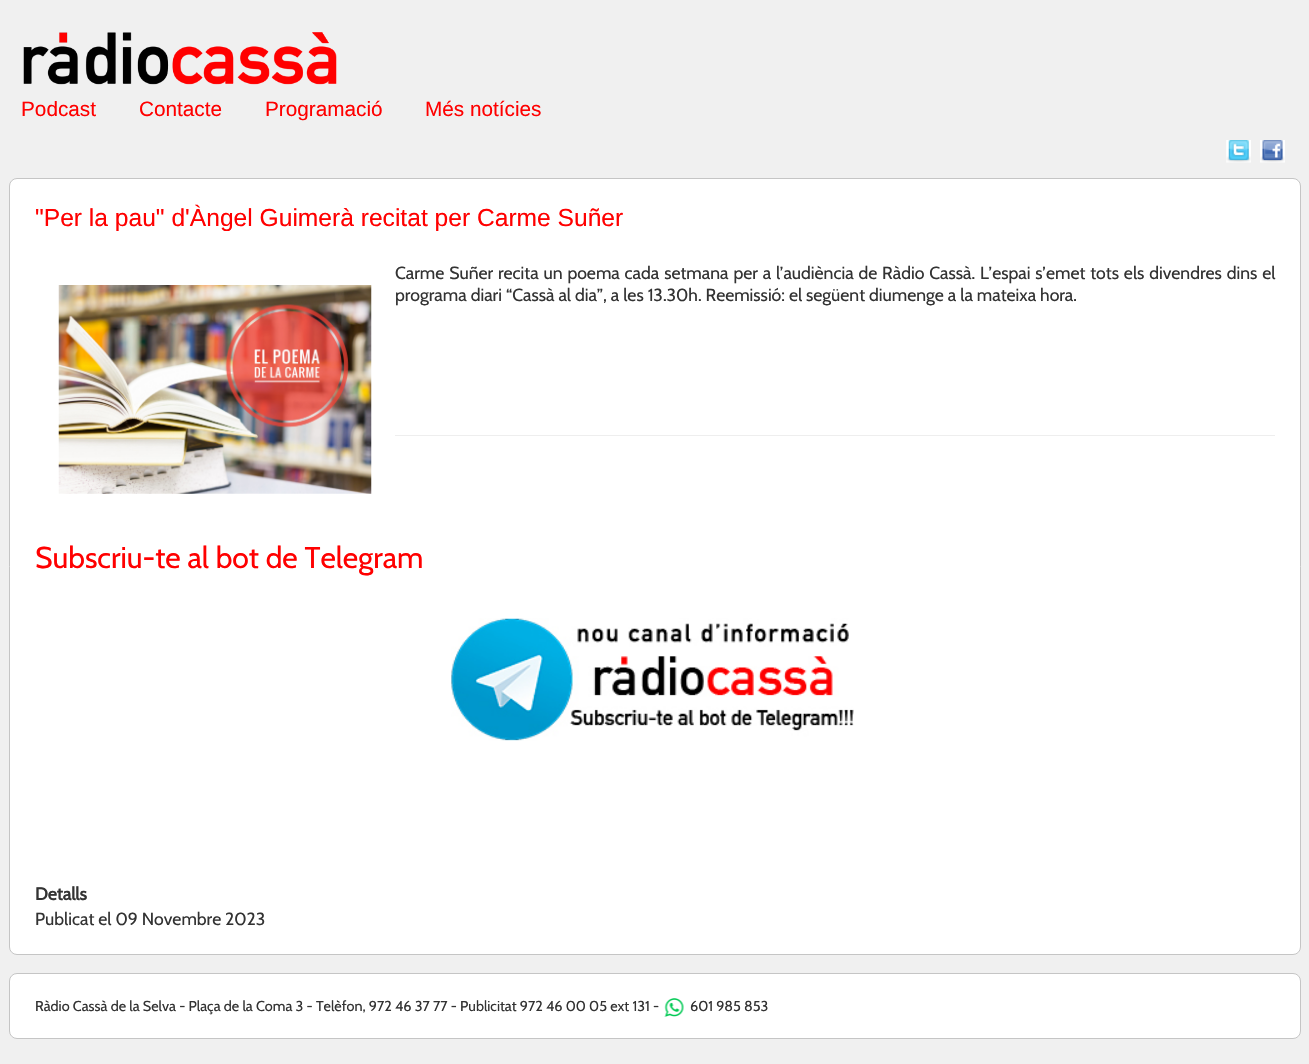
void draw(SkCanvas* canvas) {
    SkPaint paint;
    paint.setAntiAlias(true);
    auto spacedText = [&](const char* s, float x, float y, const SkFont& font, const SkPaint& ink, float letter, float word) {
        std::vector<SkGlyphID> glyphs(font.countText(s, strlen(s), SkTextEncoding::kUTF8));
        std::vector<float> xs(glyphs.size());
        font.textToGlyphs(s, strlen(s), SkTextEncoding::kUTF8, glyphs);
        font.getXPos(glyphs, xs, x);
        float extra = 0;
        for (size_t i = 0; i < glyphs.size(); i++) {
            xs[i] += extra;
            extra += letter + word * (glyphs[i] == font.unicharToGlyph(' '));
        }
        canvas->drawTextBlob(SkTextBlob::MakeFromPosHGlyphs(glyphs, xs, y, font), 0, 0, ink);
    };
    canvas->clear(0xFFF0F0F0);
    canvas->drawImageRect(SkImages::DeferredFromEncodedData(SkData::MakeFromFileName("img1.png")), SkRect::MakeXYWH(23, 32, 314, 53), SkSamplingOptions());
    SkFont font1(fontMgr->matchFamilyStyle("Liberation Sans", SkFontStyle::Normal()), 20.75f);
    font1.setSubpixel(true);
    paint.setColor(0xFFFF0000);
    canvas->drawString("Podcast", 21, 116, font1, paint);
    canvas->drawString("Contacte", 139, 116, font1, paint);
    canvas->drawString("Programació", 265, 116, font1, paint);
    canvas->drawString("Més notícies", 425, 116, font1, paint);
    canvas->drawImageRect(SkImages::DeferredFromEncodedData(SkData::MakeFromFileName("img2.png")), SkRect::MakeXYWH(1226, 140, 25, 23), SkSamplingOptions());
    canvas->drawImageRect(SkImages::DeferredFromEncodedData(SkData::MakeFromFileName("img3.png")), SkRect::MakeXYWH(1260, 140, 25, 23), SkSamplingOptions());
    paint.setColor(0xFFFFFFFF);
    canvas->drawRoundRect(SkRect::MakeXYWH(9.5f, 178.5f, 1291, 776), 7.5f, 7.5f, paint);
    paint.setStyle(SkPaint::kStroke_Style);
    paint.setStrokeWidth(1);
    paint.setColor(0xFFC5C5C5);
    canvas->drawRoundRect(SkRect::MakeXYWH(9.5f, 178.5f, 1291, 776), 7.5f, 7.5f, paint);
    SkFont font2(fontMgr->matchFamilyStyle("Liberation Sans", SkFontStyle::Normal()), 24.6f);
    font2.setSubpixel(true);
    paint.setStyle(SkPaint::kFill_Style);
    paint.setColor(0xFFFF0000);
    canvas->drawString("\"Per la pau\" d'Àngel Guimerà recitat per Carme Suñer", 35, 226, font2, paint);
    SkFont font3(fontMgr->matchFamilyStyle("Cabin", SkFontStyle::Normal()), 17.6f);
    font3.setSubpixel(true);
    paint.setColor(0xFF333333);
    spacedText("Carme Suñer recita un poema cada setmana per a l’audiència de Ràdio Cassà. L’espai s’emet tots els divendres dins el", 395, 279, font3, paint, 0, 0.9f);
    canvas->drawImageRect(SkImages::DeferredFromEncodedData(SkData::MakeFromFileName("img4.png")), SkRect::MakeXYWH(58, 285, 314, 209), SkSamplingOptions());
    canvas->drawString("programa diari “Cassà al dia”, a les 13.30h. Reemissió: el següent diumenge a la mateixa hora.", 395, 301, font3, paint);
    paint.setColor(0xFFEEEEEE);
    canvas->drawRect(SkRect::MakeXYWH(395, 435, 880, 1), paint);
    SkFont font4(fontMgr->matchFamilyStyle("Cabin", SkFontStyle::Normal()), 30);
    font4.setSubpixel(true);
    paint.setColor(0xFFFF0000);
    canvas->drawString("Subscriu-te al bot de Telegram", 35, 568, font4, paint);
    canvas->drawImageRect(SkImages::DeferredFromEncodedData(SkData::MakeFromFileName("img5.png")), SkRect::MakeXYWH(451, 618, 403, 123), SkSamplingOptions());
    SkFont font5(fontMgr->matchFamilyStyle("Cabin", SkFontStyle::Bold()), 17.6f);
    font5.setSubpixel(true);
    paint.setColor(0xFF333333);
    canvas->drawString("Detalls", 35, 900, font5, paint);
    canvas->drawString("Publicat el 09 Novembre 2023", 35, 925, font3, paint);
    paint.setColor(0xFFFFFFFF);
    canvas->drawRoundRect(SkRect::MakeXYWH(9.5f, 973.5f, 1291, 65), 7.5f, 7.5f, paint);
    paint.setStyle(SkPaint::kStroke_Style);
    paint.setColor(0xFFC5C5C5);
    canvas->drawRoundRect(SkRect::MakeXYWH(9.5f, 973.5f, 1291, 65), 7.5f, 7.5f, paint);
    SkFont font6(fontMgr->matchFamilyStyle("Cabin", SkFontStyle::Normal()), 14.4f);
    font6.setSubpixel(true);
    paint.setStyle(SkPaint::kFill_Style);
    paint.setColor(0xFF333333);
    canvas->drawString("Ràdio Cassà de la Selva - Plaça de la Coma 3 - Telèfon, 972 46 37 77 - Publicitat 972 46 00 05 ext 131 -", 35, 1011, font6, paint);
    canvas->drawImageRect(SkImages::DeferredFromEncodedData(SkData::MakeFromFileName("img6.png")), SkRect::MakeXYWH(664, 998, 20, 19), SkSamplingOptions());
    canvas->drawString("601 985 853", 690, 1011, font6, paint);
}
